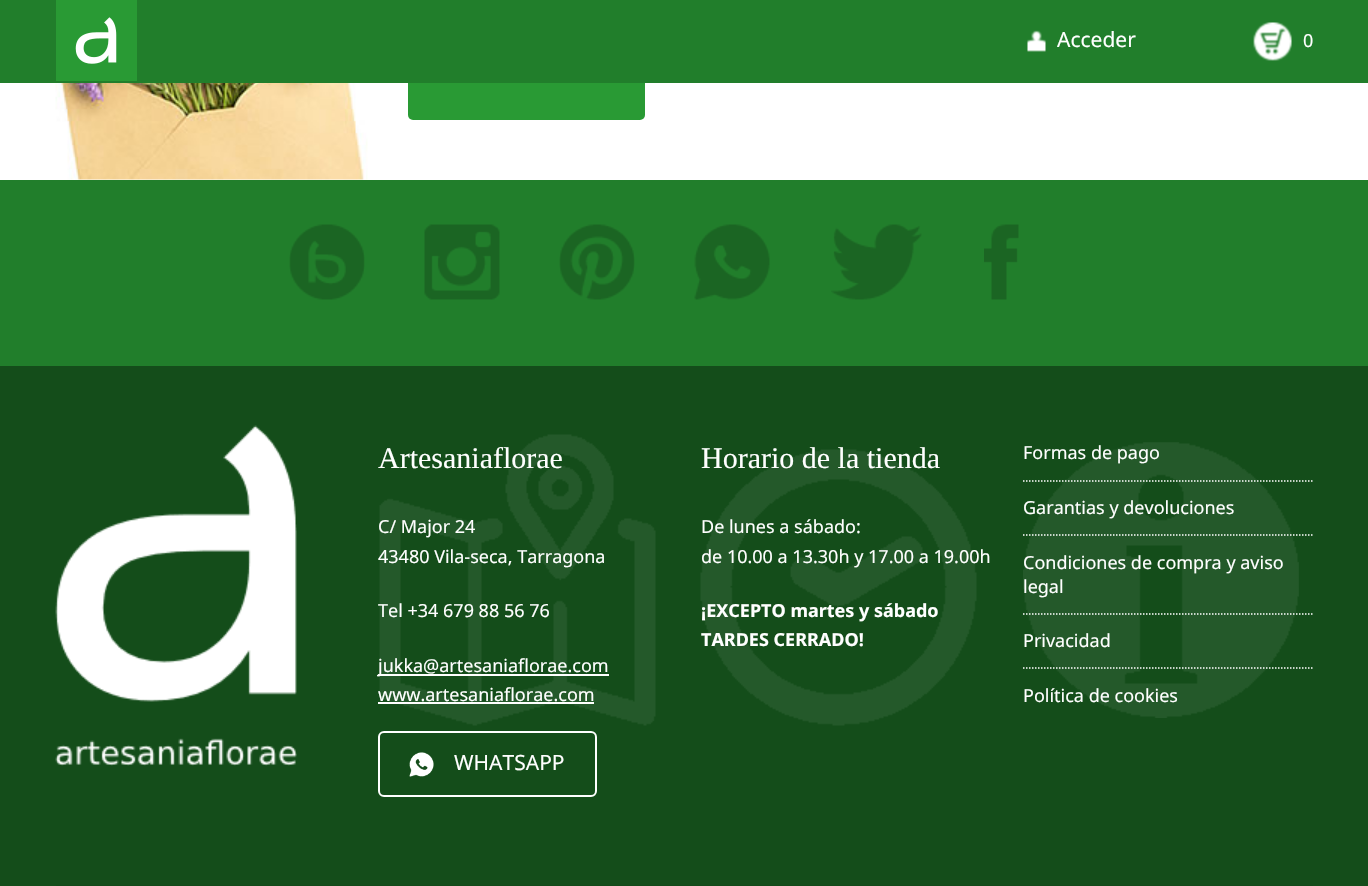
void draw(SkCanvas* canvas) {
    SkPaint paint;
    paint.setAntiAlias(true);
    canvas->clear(0xFFFFFFFF);
    paint.setColor(0xFF299A34);
    canvas->drawRoundRect(SkRect::MakeXYWH(408, 47, 237, 73), 5, 5, paint);
    paint.setColor(0xFF217E2B);
    canvas->drawRect(SkRect::MakeXYWH(0, 0, 1368, 83), paint);
    paint.setColor(0xFF299A34);
    canvas->drawRect(SkRect::MakeXYWH(56, 0, 81, 81), paint);
    canvas->drawImageRect(SkImages::DeferredFromEncodedData(SkData::MakeFromFileName("img1.png")), SkRect::MakeXYWH(75, 17, 42, 47), SkSamplingOptions());
    canvas->drawImageRect(SkImages::DeferredFromEncodedData(SkData::MakeFromFileName("img2.png")), SkRect::MakeXYWH(1027, 30, 19, 22), SkSamplingOptions());
    SkFont font1(fontMgr->matchFamilyStyle("Noto Sans", SkFontStyle::Normal()), 21);
    font1.setSubpixel(true);
    paint.setColor(0xFFFFFFFF);
    canvas->drawString("Acceder", 1057, 47, font1, paint);
    canvas->drawImageRect(SkImages::DeferredFromEncodedData(SkData::MakeFromFileName("img3.png")), SkRect::MakeXYWH(1253, 22, 39, 39), SkSamplingOptions());
    SkFont font2(fontMgr->matchFamilyStyle("Noto Sans", SkFontStyle::Normal()), 18);
    font2.setSubpixel(true);
    canvas->drawString("0", 1303, 47, font2, paint);
    canvas->drawImageRect(SkImages::DeferredFromEncodedData(SkData::MakeFromFileName("img4.png")), SkRect::MakeXYWH(55, 83, 313, 97), SkSamplingOptions());
    paint.setColor(0xFF144D1A);
    canvas->drawRect(SkRect::MakeXYWH(0, 366, 1368, 520), paint);
    paint.setColor(0xFF217E2B);
    canvas->drawRect(SkRect::MakeXYWH(0, 180, 1368, 186), paint);
    canvas->drawImageRect(SkImages::DeferredFromEncodedData(SkData::MakeFromFileName("img5.png")), SkRect::MakeXYWH(289, 224, 76, 76), SkSamplingOptions());
    canvas->drawImageRect(SkImages::DeferredFromEncodedData(SkData::MakeFromFileName("img6.png")), SkRect::MakeXYWH(424, 224, 76, 76), SkSamplingOptions());
    canvas->drawImageRect(SkImages::DeferredFromEncodedData(SkData::MakeFromFileName("img7.png")), SkRect::MakeXYWH(559, 224, 76, 76), SkSamplingOptions());
    canvas->drawImageRect(SkImages::DeferredFromEncodedData(SkData::MakeFromFileName("img8.png")), SkRect::MakeXYWH(694, 224, 76, 76), SkSamplingOptions());
    canvas->drawImageRect(SkImages::DeferredFromEncodedData(SkData::MakeFromFileName("img9.png")), SkRect::MakeXYWH(831, 224, 91, 76), SkSamplingOptions());
    canvas->drawImageRect(SkImages::DeferredFromEncodedData(SkData::MakeFromFileName("img10.png")), SkRect::MakeXYWH(984, 224, 35, 76), SkSamplingOptions());
    paint.setColor(0xFF134919);
    canvas->drawRect(SkRect::MakeXYWH(56, 885, 1257, 1), paint);
    canvas->drawImageRect(SkImages::DeferredFromEncodedData(SkData::MakeFromFileName("img11.png")), SkRect::MakeXYWH(55, 425, 242, 341), SkSamplingOptions());
    canvas->drawImageRect(SkImages::DeferredFromEncodedData(SkData::MakeFromFileName("img12.png")), SkRect::MakeXYWH(379, 434, 277, 292), SkSamplingOptions());
    SkFont font3(fontMgr->matchFamilyStyle("Liberation Serif", SkFontStyle::Normal()), 30);
    font3.setSubpixel(true);
    paint.setColor(0xFFFFFFFF);
    canvas->drawString("Artesaniaflorae", 378, 468, font3, paint);
    canvas->drawString("C/ Major 24", 378, 533, font2, paint);
    canvas->drawString("43480 Vila-seca, Tarragona", 378, 563, font2, paint);
    canvas->drawString("Tel +34 679 88 56 76", 378, 617, font2, paint);
    canvas->drawRect(SkRect::MakeXYWH(378, 674, 231, 2), paint);
    canvas->drawString("jukka@artesaniaflorae.com", 378, 672, font2, paint);
    canvas->drawString("www.artesaniaflorae.com", 378, 701, font2, paint);
    canvas->drawRect(SkRect::MakeXYWH(378, 702, 216, 2), paint);
    paint.setStyle(SkPaint::kStroke_Style);
    paint.setStrokeWidth(2);
    canvas->drawRoundRect(SkRect::MakeXYWH(379, 732, 217, 64), 5, 5, paint);
    canvas->drawImageRect(SkImages::DeferredFromEncodedData(SkData::MakeFromFileName("img13.png")), SkRect::MakeXYWH(409, 752, 25, 25), SkSamplingOptions());
    paint.setStyle(SkPaint::kFill_Style);
    canvas->drawString("WHATSAPP", 454, 770, font1, paint);
    canvas->drawImageRect(SkImages::DeferredFromEncodedData(SkData::MakeFromFileName("img14.png")), SkRect::MakeXYWH(700, 449, 277, 277), SkSamplingOptions());
    canvas->drawString("Horario de la tienda", 701, 468, font3, paint);
    canvas->drawString("De lunes a sábado:", 701, 533, font2, paint);
    canvas->drawString("de 10.00 a 13.30h y 17.00 a 19.00h", 701, 563, font2, paint);
    SkFont font4(fontMgr->matchFamilyStyle("Noto Sans", SkFontStyle::Bold()), 18);
    font4.setSubpixel(true);
    canvas->drawString("¡EXCEPTO martes y sábado", 701, 617, font4, paint);
    canvas->drawString("TARDES CERRADO!", 701, 646, font4, paint);
    canvas->drawImageRect(SkImages::DeferredFromEncodedData(SkData::MakeFromFileName("img15.png")), SkRect::MakeXYWH(1023, 442, 276, 276), SkSamplingOptions());
    canvas->drawString("Formas de pago", 1023, 459, font2, paint);
    paint.setStyle(SkPaint::kStroke_Style);
    paint.setStrokeWidth(1.5f);
    paint.setPathEffect(SkDashPathEffect::Make({{1.5f, 1.5f}}, 0));
    canvas->drawPath(SkPathBuilder().moveTo(1023, 481).lineTo(1312.5f, 481).detach(), paint);
    paint.setPathEffect(nullptr);
    paint.setStyle(SkPaint::kFill_Style);
    canvas->drawString("Garantias y devoluciones", 1023, 514, font2, paint);
    paint.setStyle(SkPaint::kStroke_Style);
    paint.setPathEffect(SkDashPathEffect::Make({{1.5f, 1.5f}}, 0));
    canvas->drawPath(SkPathBuilder().moveTo(1023, 535).lineTo(1312.5f, 535).detach(), paint);
    paint.setPathEffect(nullptr);
    paint.setStyle(SkPaint::kFill_Style);
    canvas->drawString("Condiciones de compra y aviso", 1023, 569, font2, paint);
    canvas->drawString("legal", 1023, 593, font2, paint);
    paint.setStyle(SkPaint::kStroke_Style);
    paint.setPathEffect(SkDashPathEffect::Make({{1.5f, 1.5f}}, 0));
    canvas->drawPath(SkPathBuilder().moveTo(1023, 614).lineTo(1312.5f, 614).detach(), paint);
    paint.setPathEffect(nullptr);
    paint.setStyle(SkPaint::kFill_Style);
    canvas->drawString("Privacidad", 1023, 647, font2, paint);
    paint.setStyle(SkPaint::kStroke_Style);
    paint.setPathEffect(SkDashPathEffect::Make({{1.5f, 1.5f}}, 0));
    canvas->drawPath(SkPathBuilder().moveTo(1023, 668).lineTo(1312.5f, 668).detach(), paint);
    paint.setPathEffect(nullptr);
    paint.setStyle(SkPaint::kFill_Style);
    canvas->drawString("Política de cookies", 1023, 702, font2, paint);
}
